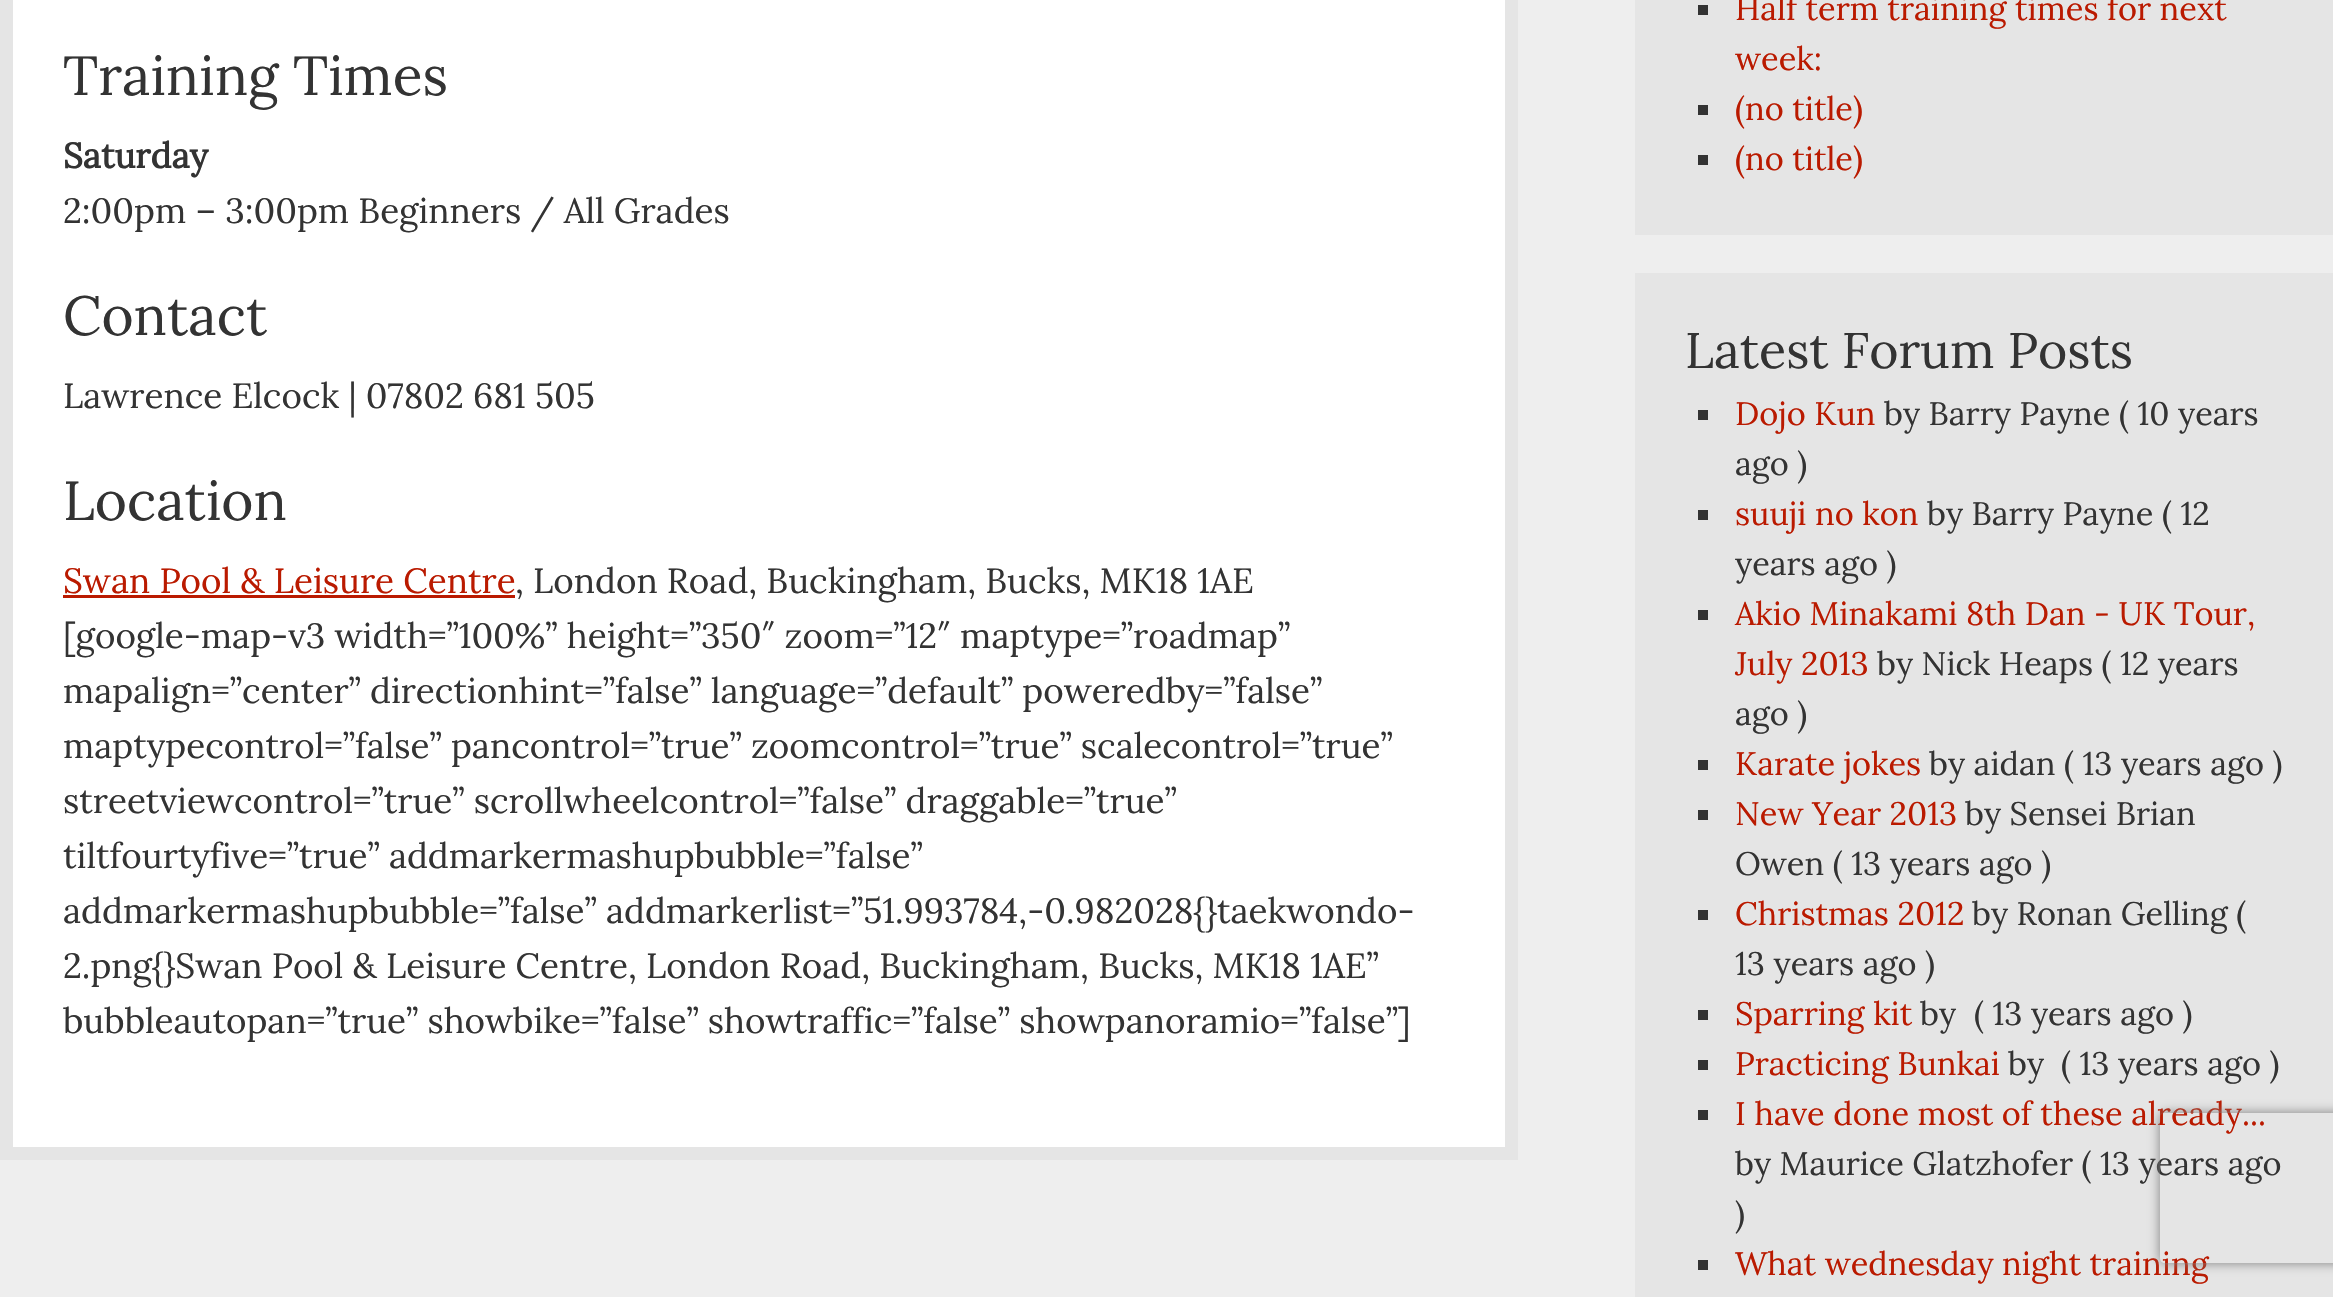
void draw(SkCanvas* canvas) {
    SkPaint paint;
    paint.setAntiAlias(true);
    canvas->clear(0xFFEEEEEE);
    paint.setColor(0xFFFFFFFF);
    canvas->drawRect(SkRect::MakeXYWH(6.5f, -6.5f, 1505, 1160), paint);
    paint.setStyle(SkPaint::kStroke_Style);
    paint.setStrokeWidth(13);
    paint.setColor(0xFFE5E5E5);
    canvas->drawRect(SkRect::MakeXYWH(6.5f, -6.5f, 1505, 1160), paint);
    SkFont font1(fontMgr->matchFamilyStyle("Lora", SkFontStyle::Normal()), 55);
    font1.setSubpixel(true);
    paint.setStyle(SkPaint::kFill_Style);
    paint.setColor(0xFF333333);
    canvas->drawString("Training Times", 63, 95, font1, paint);
    SkFont font2(fontMgr->matchFamilyStyle("Lora", SkFontStyle::Bold()), 35);
    font2.setSubpixel(true);
    canvas->drawString("Saturday", 63, 168, font2, paint);
    SkFont font3(fontMgr->matchFamilyStyle("Lora", SkFontStyle::Normal()), 35);
    font3.setSubpixel(true);
    canvas->drawString("2:00pm – 3:00pm Beginners / All Grades", 63, 223, font3, paint);
    canvas->drawString("Contact", 63, 335, font1, paint);
    canvas->drawString("Lawrence Elcock | 07802 681 505", 63, 408, font3, paint);
    canvas->drawString("Location", 63, 520, font1, paint);
    paint.setColor(0xFFBA1A00);
    canvas->drawString("Swan Pool & Leisure Centre", 63, 593, font3, paint);
    canvas->drawRect(SkRect::MakeXYWH(63, 595, 452, 3), paint);
    paint.setColor(0xFF333333);
    canvas->drawString(", London Road, Buckingham, Bucks, MK18 1AE", 515, 593, font3, paint);
    canvas->drawString("[google-map-v3 width=”100%” height=”350″ zoom=”12″ maptype=”roadmap”", 63, 648, font3, paint);
    canvas->drawString("mapalign=”center” directionhint=”false” language=”default” poweredby=”false”", 63, 703, font3, paint);
    canvas->drawString("maptypecontrol=”false” pancontrol=”true” zoomcontrol=”true” scalecontrol=”true”", 63, 758, font3, paint);
    canvas->drawString("streetviewcontrol=”true” scrollwheelcontrol=”false” draggable=”true”", 63, 813, font3, paint);
    canvas->drawString("tiltfourtyfive=”true” addmarkermashupbubble=”false”", 63, 868, font3, paint);
    canvas->drawString("addmarkermashupbubble=”false” addmarkerlist=”51.993784,-0.982028{}taekwondo-", 63, 923, font3, paint);
    canvas->drawString("2.png{}Swan Pool & Leisure Centre, London Road, Buckingham, Bucks, MK18 1AE”", 63, 978, font3, paint);
    canvas->drawString("bubbleautopan=”true” showbike=”false” showtraffic=”false” showpanoramio=”false”]", 63, 1033, font3, paint);
    paint.setColor(0xFFE5E5E5);
    canvas->drawRect(SkRect::MakeXYWH(1635, 0, 698, 235), paint);
    paint.setColor(0xFF333333);
    canvas->drawRect(SkRect::MakeXYWH(1698, 5, 10, 10), paint);
    SkFont font4(fontMgr->matchFamilyStyle("Lora", SkFontStyle::Normal()), 32.5f);
    font4.setSubpixel(true);
    paint.setColor(0xFFBA1A00);
    canvas->drawString("Half term training times for next", 1735, 20, font4, paint);
    canvas->drawString("week:", 1735, 70, font4, paint);
    paint.setColor(0xFF333333);
    canvas->drawRect(SkRect::MakeXYWH(1698, 105, 10, 10), paint);
    paint.setColor(0xFFBA1A00);
    canvas->drawString("(no title)", 1735, 120, font4, paint);
    paint.setColor(0xFF333333);
    canvas->drawRect(SkRect::MakeXYWH(1698, 155, 10, 10), paint);
    paint.setColor(0xFFBA1A00);
    canvas->drawString("(no title)", 1735, 170, font4, paint);
    paint.setColor(0xFFE5E5E5);
    canvas->drawRect(SkRect::MakeXYWH(1635, 273, 698, 1024), paint);
    SkFont font5(fontMgr->matchFamilyStyle("Lora", SkFontStyle::Normal()), 50);
    font5.setSubpixel(true);
    paint.setColor(0xFF333333);
    canvas->drawString("Latest Forum Posts", 1685, 368, font5, paint);
    canvas->drawRect(SkRect::MakeXYWH(1698, 410, 10, 10), paint);
    paint.setColor(0xFFBA1A00);
    canvas->drawString("Dojo Kun", 1735, 425, font4, paint);
    paint.setColor(0xFF333333);
    canvas->drawString("by Barry Payne ( 10 years", 1884, 425, font4, paint);
    canvas->drawString("ago )", 1735, 475, font4, paint);
    canvas->drawRect(SkRect::MakeXYWH(1698, 510, 10, 10), paint);
    paint.setColor(0xFFBA1A00);
    canvas->drawString("suuji no kon", 1735, 525, font4, paint);
    paint.setColor(0xFF333333);
    canvas->drawString("by Barry Payne ( 12", 1927, 525, font4, paint);
    canvas->drawString("years ago )", 1735, 575, font4, paint);
    canvas->drawRect(SkRect::MakeXYWH(1698, 610, 10, 10), paint);
    paint.setColor(0xFFBA1A00);
    canvas->drawString("Akio Minakami 8th Dan - UK Tour,", 1735, 625, font4, paint);
    canvas->drawString("July 2013", 1735, 675, font4, paint);
    paint.setColor(0xFF333333);
    canvas->drawString("by Nick Heaps ( 12 years", 1877, 675, font4, paint);
    canvas->drawString("ago )", 1735, 725, font4, paint);
    canvas->drawRect(SkRect::MakeXYWH(1698, 760, 10, 10), paint);
    paint.setColor(0xFFBA1A00);
    canvas->drawString("Karate jokes", 1735, 775, font4, paint);
    paint.setColor(0xFF333333);
    canvas->drawString("by aidan ( 13 years ago )", 1929, 775, font4, paint);
    canvas->drawRect(SkRect::MakeXYWH(1698, 810, 10, 10), paint);
    paint.setColor(0xFFBA1A00);
    canvas->drawString("New Year 2013", 1735, 825, font4, paint);
    paint.setColor(0xFF333333);
    canvas->drawString("by Sensei Brian", 1965, 825, font4, paint);
    canvas->drawString("Owen ( 13 years ago )", 1735, 875, font4, paint);
    canvas->drawRect(SkRect::MakeXYWH(1698, 910, 10, 10), paint);
    paint.setColor(0xFFBA1A00);
    canvas->drawString("Christmas 2012", 1735, 925, font4, paint);
    paint.setColor(0xFF333333);
    canvas->drawString("by Ronan Gelling (", 1972, 925, font4, paint);
    canvas->drawString("13 years ago )", 1735, 975, font4, paint);
    canvas->drawRect(SkRect::MakeXYWH(1698, 1010, 10, 10), paint);
    paint.setColor(0xFFBA1A00);
    canvas->drawString("Sparring kit", 1735, 1025, font4, paint);
    paint.setColor(0xFF333333);
    canvas->drawString("by", 1920, 1025, font4, paint);
    canvas->drawString("( 13 years ago )", 1974, 1025, font4, paint);
    canvas->drawRect(SkRect::MakeXYWH(1698, 1060, 10, 10), paint);
    paint.setColor(0xFFBA1A00);
    canvas->drawString("Practicing Bunkai", 1735, 1075, font4, paint);
    paint.setColor(0xFF333333);
    canvas->drawString("by", 2008, 1075, font4, paint);
    canvas->drawString("( 13 years ago )", 2061, 1075, font4, paint);
    canvas->drawRect(SkRect::MakeXYWH(1698, 1110, 10, 10), paint);
    paint.setColor(0xFFBA1A00);
    canvas->drawString("I have done most of these already...", 1735, 1125, font4, paint);
    paint.setColor(0xFF333333);
    canvas->drawString("by Maurice Glatzhofer ( 13 years ago", 1735, 1175, font4, paint);
    canvas->drawString(")", 1735, 1225, font4, paint);
    canvas->drawRect(SkRect::MakeXYWH(1698, 1260, 10, 10), paint);
    paint.setColor(0xFFBA1A00);
    canvas->drawString("What wednesday night training", 1735, 1275, font4, paint);
    canvas->save();
    canvas->clipPath(SkPathBuilder(SkPathFillType::kEvenOdd).moveTo(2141, 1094).lineTo(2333, 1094).lineTo(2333, 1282).lineTo(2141, 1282).close().moveTo(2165, 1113).lineTo(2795, 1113).cubicTo(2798, 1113, 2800, 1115, 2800, 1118).lineTo(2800, 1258).cubicTo(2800, 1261, 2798, 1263, 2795, 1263).lineTo(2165, 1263).cubicTo(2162, 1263, 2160, 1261, 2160, 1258).lineTo(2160, 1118).cubicTo(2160, 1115, 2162, 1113, 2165, 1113).close().detach(), true);
    paint.setColor(0xFF808080);
    paint.setMaskFilter(SkMaskFilter::MakeBlur(kNormal_SkBlurStyle, 6));
    canvas->drawRoundRect(SkRect::MakeXYWH(2160, 1113, 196, 150), 5, 5, paint);
    paint.setMaskFilter(nullptr);
    canvas->restore();
}
